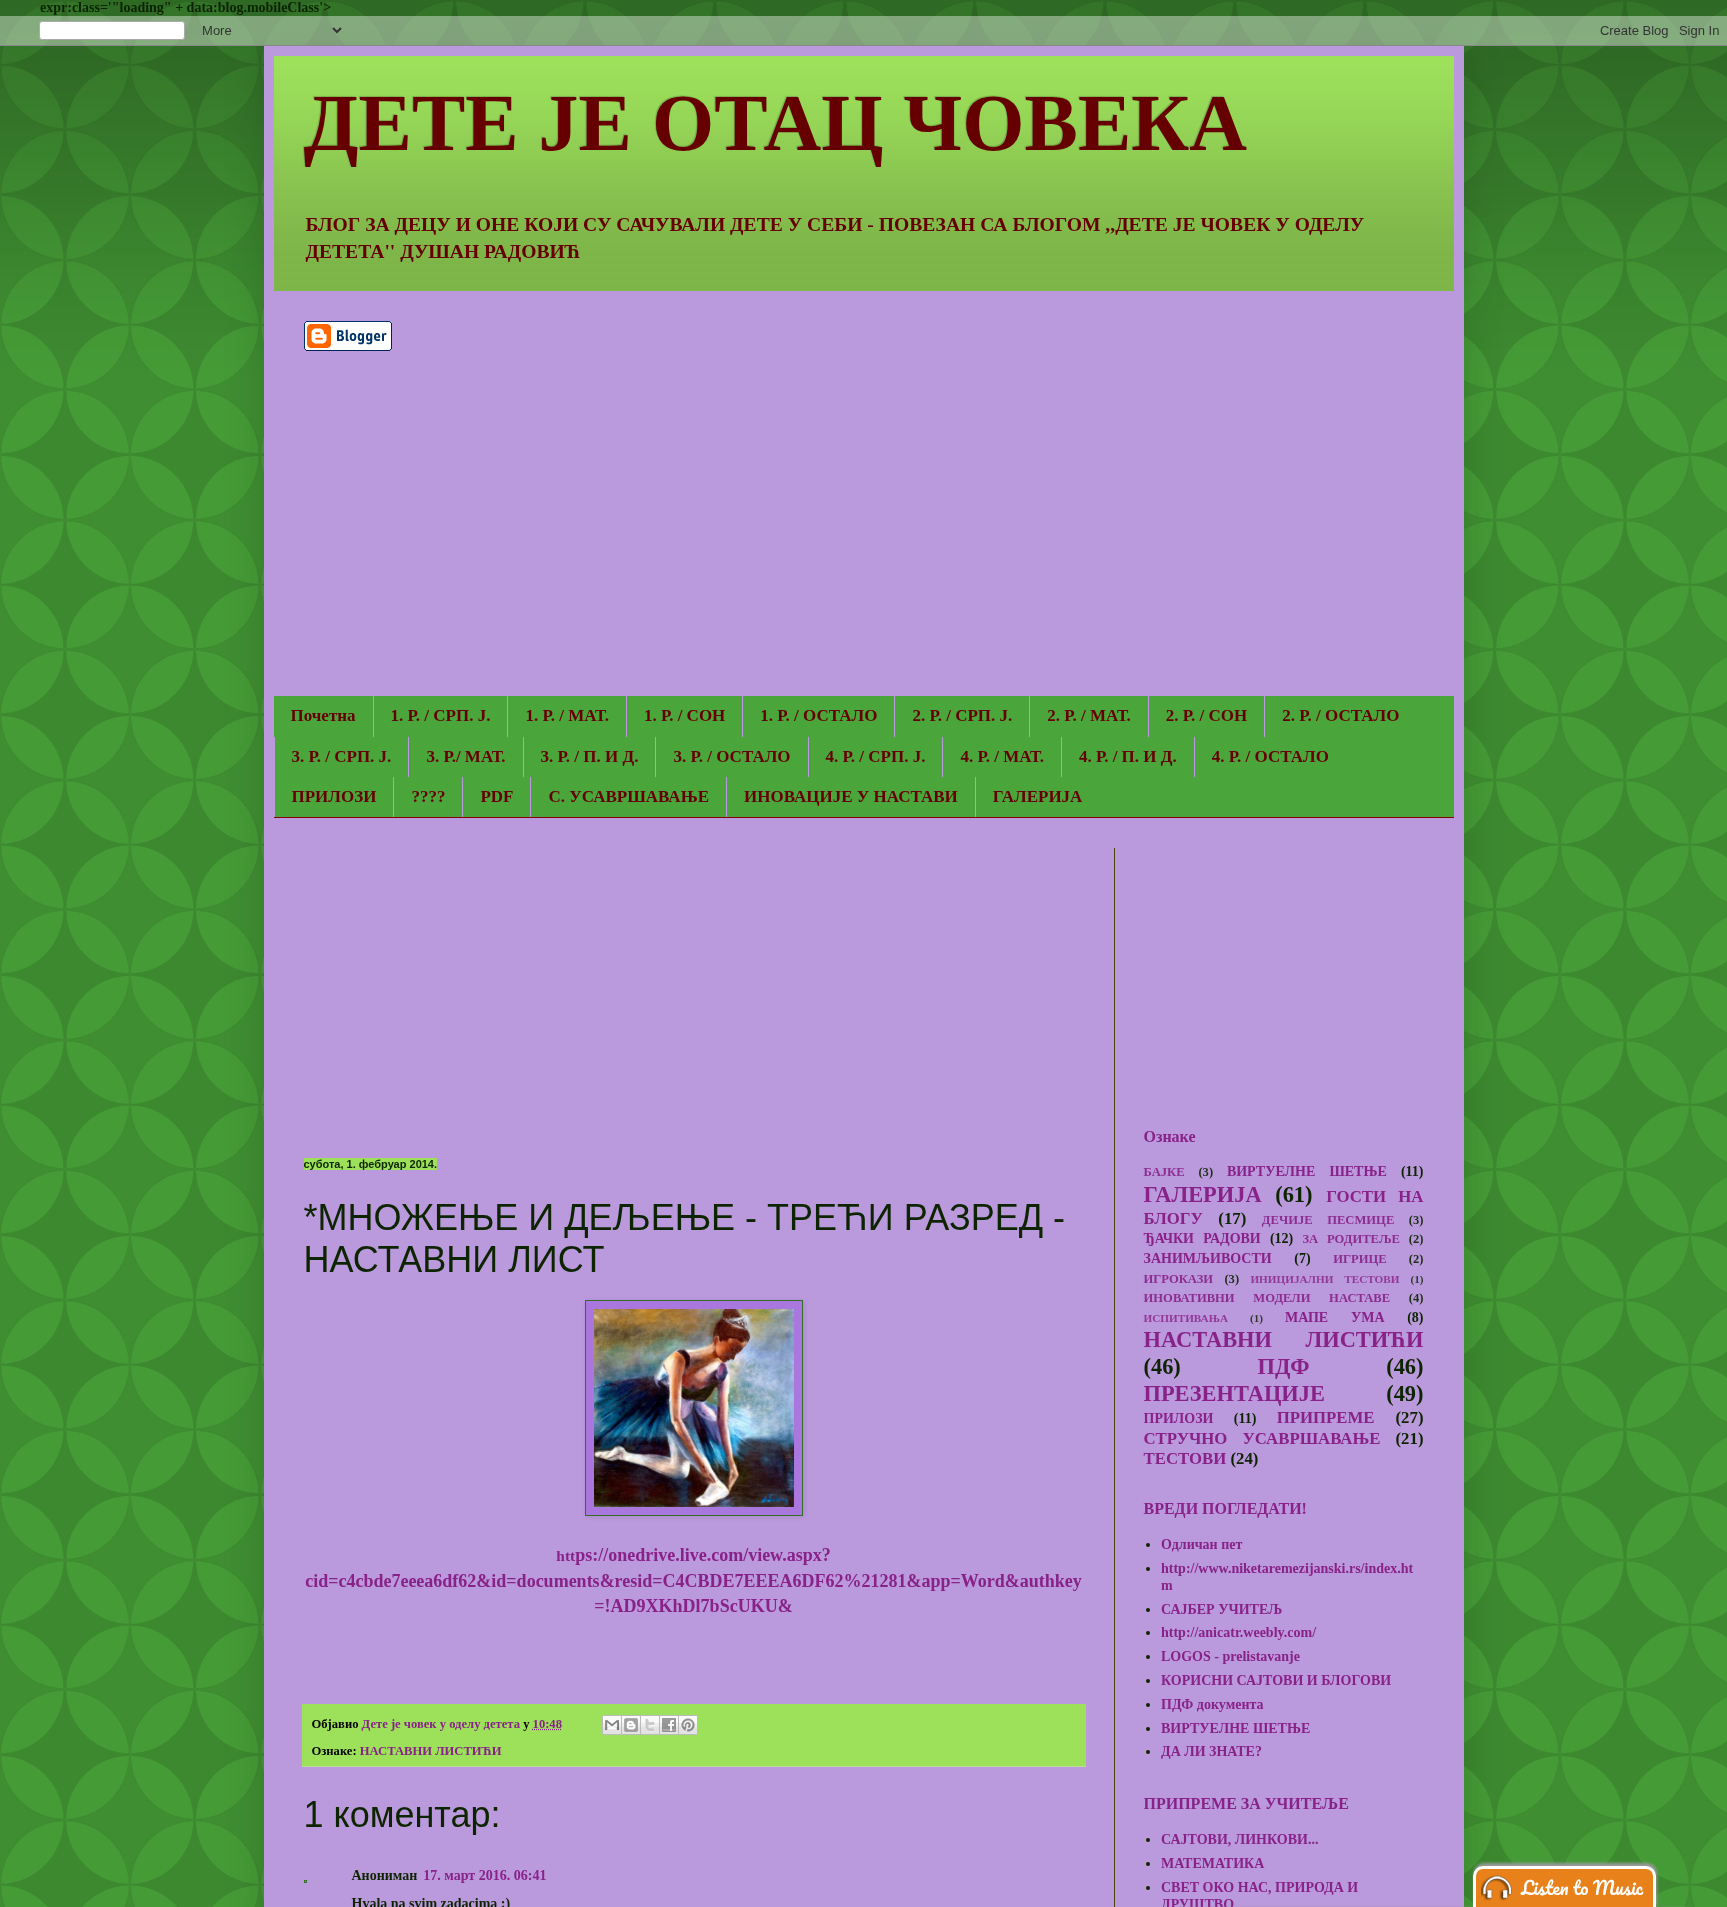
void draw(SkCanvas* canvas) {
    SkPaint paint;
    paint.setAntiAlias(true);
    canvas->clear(0xFFFFFFFF);
    canvas->drawImageRect(SkImages::DeferredFromEncodedData(SkData::MakeFromFileName("img1.png")), SkRect::MakeXYWH(0, 0, 1727, 1907), SkSamplingOptions());
}
